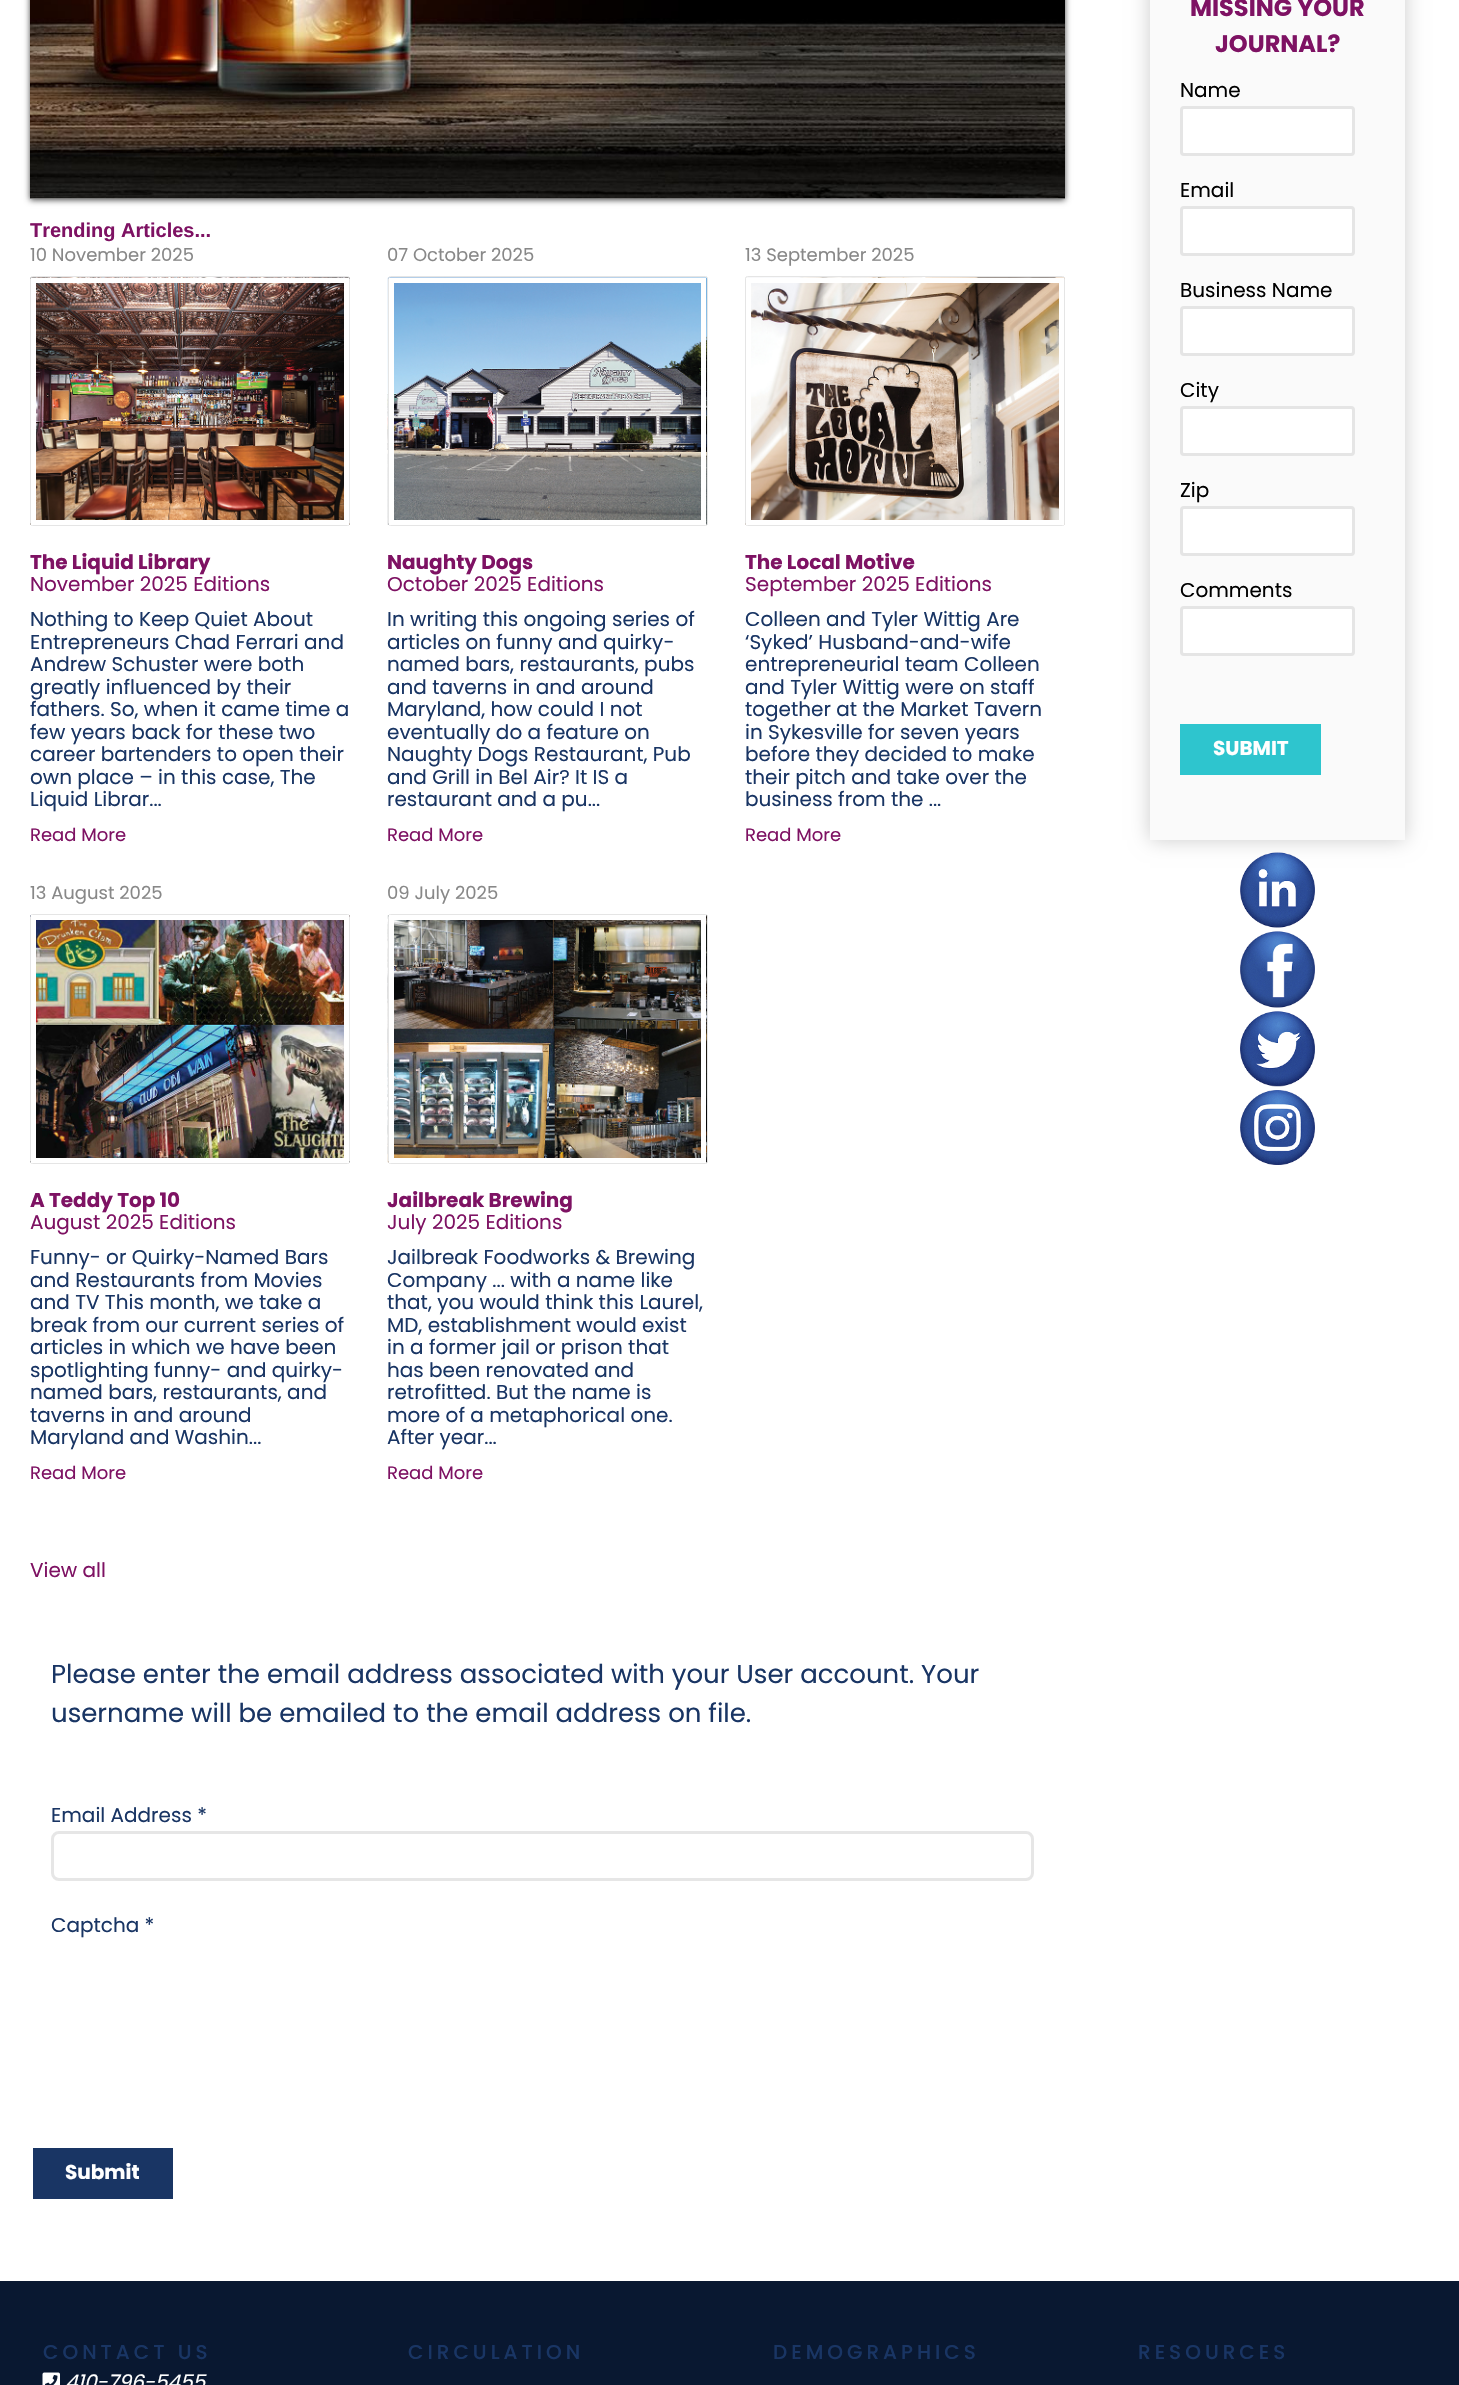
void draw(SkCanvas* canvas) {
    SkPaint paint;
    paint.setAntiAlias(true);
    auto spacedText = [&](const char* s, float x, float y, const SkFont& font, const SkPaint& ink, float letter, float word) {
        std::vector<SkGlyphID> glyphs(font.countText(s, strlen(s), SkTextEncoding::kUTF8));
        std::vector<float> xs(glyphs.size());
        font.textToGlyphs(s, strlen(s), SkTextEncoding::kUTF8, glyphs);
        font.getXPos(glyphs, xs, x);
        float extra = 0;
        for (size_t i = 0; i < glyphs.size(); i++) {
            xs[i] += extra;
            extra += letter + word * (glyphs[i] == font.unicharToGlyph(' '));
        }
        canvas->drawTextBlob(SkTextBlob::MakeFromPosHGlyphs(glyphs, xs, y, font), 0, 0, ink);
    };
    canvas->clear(0xFFFFFFFF);
    paint.setColor(0xFF4A4A4A);
    paint.setMaskFilter(SkMaskFilter::MakeBlur(kNormal_SkBlurStyle, 3));
    canvas->drawRect(SkRect::MakeXYWH(30, -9, 1035, 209), paint);
    paint.setMaskFilter(nullptr);
    paint.setColor(0xFFFFFFFF);
    canvas->drawRect(SkRect::MakeXYWH(30, 198, 1035, 1), paint);
    canvas->drawImageRect(SkImages::DeferredFromEncodedData(SkData::MakeFromFileName("img1.png")), SkRect::MakeXYWH(30, 0, 1035, 199), SkSamplingOptions());
    SkFont font1(fontMgr->matchFamilyStyle("Liberation Sans", SkFontStyle::Bold()), 20);
    font1.setSubpixel(true);
    paint.setColor(0xFF7E1263);
    canvas->drawString("Trending Articles...", 30, 237, font1, paint);
    SkFont font2(fontMgr->matchFamilyStyle("Poppins", SkFontStyle::Normal()), 18);
    font2.setSubpixel(true);
    paint.setColor(0xFF888888);
    canvas->drawString("10 November 2025", 30, 261, font2, paint);
    canvas->drawImageRect(SkImages::DeferredFromEncodedData(SkData::MakeFromFileName("img2.png")), SkRect::MakeXYWH(30, 277, 320, 248), SkSamplingOptions());
    paint.setStyle(SkPaint::kStroke_Style);
    paint.setStrokeWidth(1);
    paint.setColor(0xFFE5E5E5);
    canvas->drawRoundRect(SkRect::MakeXYWH(30.5f, 276.5f, 319, 249), 2, 2, paint);
    paint.setStrokeWidth(5);
    paint.setColor(0xFFFFFFFF);
    canvas->drawRect(SkRect::MakeXYWH(33.5f, 280.5f, 313, 242), paint);
    SkFont font3(fontMgr->matchFamilyStyle("Poppins", SkFontStyle::Bold()), 20);
    font3.setSubpixel(true);
    paint.setStyle(SkPaint::kFill_Style);
    paint.setColor(0xFF7E1263);
    canvas->drawString("The Liquid Library", 30, 569, font3, paint);
    SkFont font4(fontMgr->matchFamilyStyle("Poppins", SkFontStyle::Normal()), 20);
    font4.setSubpixel(true);
    canvas->drawString("November 2025 Editions", 30, 591, font4, paint);
    paint.setColor(0xFF193564);
    canvas->drawString("Nothing to Keep Quiet About", 30, 626, font4, paint);
    canvas->drawString("Entrepreneurs Chad Ferrari and", 30, 649, font4, paint);
    canvas->drawString("Andrew Schuster were both", 30, 671, font4, paint);
    canvas->drawString("greatly influenced by their", 30, 694, font4, paint);
    canvas->drawString("fathers. So, when it came time a", 30, 716, font4, paint);
    canvas->drawString("few years back for these two", 30, 739, font4, paint);
    canvas->drawString("career bartenders to open their", 30, 761, font4, paint);
    canvas->drawString("own place – in this case, The", 30, 784, font4, paint);
    canvas->drawString("Liquid Librar...", 30, 806, font4, paint);
    paint.setColor(0xFF7E1263);
    canvas->drawString("Read More", 30, 841, font2, paint);
    paint.setColor(0xFF888888);
    canvas->drawString("07 October 2025", 387, 261, font2, paint);
    canvas->drawImageRect(SkImages::DeferredFromEncodedData(SkData::MakeFromFileName("img3.png")), SkRect::MakeXYWH(387, 277, 321, 248), SkSamplingOptions());
    paint.setStyle(SkPaint::kStroke_Style);
    paint.setStrokeWidth(1);
    paint.setColor(0xFFE5E5E5);
    canvas->drawRoundRect(SkRect::MakeXYWH(388.5f, 276.5f, 319, 249), 2, 2, paint);
    paint.setStrokeWidth(5);
    paint.setColor(0xFFFFFFFF);
    canvas->drawRect(SkRect::MakeXYWH(391.5f, 280.5f, 312, 242), paint);
    paint.setStyle(SkPaint::kFill_Style);
    paint.setColor(0xFF7E1263);
    canvas->drawString("Naughty Dogs", 387, 569, font3, paint);
    canvas->drawString("October 2025 Editions", 387, 591, font4, paint);
    paint.setColor(0xFF193564);
    canvas->drawString("In writing this ongoing series of", 387, 626, font4, paint);
    canvas->drawString("articles on funny and quirky-", 387, 649, font4, paint);
    canvas->drawString("named bars, restaurants, pubs", 387, 671, font4, paint);
    canvas->drawString("and taverns in and around", 387, 694, font4, paint);
    canvas->drawString("Maryland, how could I not", 387, 716, font4, paint);
    canvas->drawString("eventually do a feature on", 387, 739, font4, paint);
    canvas->drawString("Naughty Dogs Restaurant, Pub", 387, 761, font4, paint);
    canvas->drawString("and Grill in Bel Air? It IS a", 387, 784, font4, paint);
    canvas->drawString("restaurant and a pu...", 387, 806, font4, paint);
    paint.setColor(0xFF7E1263);
    canvas->drawString("Read More", 387, 841, font2, paint);
    paint.setColor(0xFF888888);
    canvas->drawString("13 September 2025", 745, 261, font2, paint);
    canvas->drawImageRect(SkImages::DeferredFromEncodedData(SkData::MakeFromFileName("img4.png")), SkRect::MakeXYWH(745, 277, 320, 248), SkSamplingOptions());
    paint.setStyle(SkPaint::kStroke_Style);
    paint.setStrokeWidth(1);
    paint.setColor(0xFFE5E5E5);
    canvas->drawRoundRect(SkRect::MakeXYWH(745.5f, 276.5f, 319, 249), 2, 2, paint);
    paint.setStrokeWidth(5);
    paint.setColor(0xFFFFFFFF);
    canvas->drawRect(SkRect::MakeXYWH(748.5f, 280.5f, 313, 242), paint);
    paint.setStyle(SkPaint::kFill_Style);
    paint.setColor(0xFF7E1263);
    canvas->drawString("The Local Motive", 745, 569, font3, paint);
    canvas->drawString("September 2025 Editions", 745, 591, font4, paint);
    paint.setColor(0xFF193564);
    canvas->drawString("Colleen and Tyler Wittig Are", 745, 626, font4, paint);
    canvas->drawString("‘Syked’ Husband-and-wife", 745, 649, font4, paint);
    canvas->drawString("entrepreneurial team Colleen", 745, 671, font4, paint);
    canvas->drawString("and Tyler Wittig were on staff", 745, 694, font4, paint);
    canvas->drawString("together at the Market Tavern", 745, 716, font4, paint);
    canvas->drawString("in Sykesville for seven years", 745, 739, font4, paint);
    canvas->drawString("before they decided to make", 745, 761, font4, paint);
    canvas->drawString("their pitch and take over the", 745, 784, font4, paint);
    canvas->drawString("business from the ...", 745, 806, font4, paint);
    paint.setColor(0xFF7E1263);
    canvas->drawString("Read More", 745, 841, font2, paint);
    paint.setColor(0xFF888888);
    canvas->drawString("13 August 2025", 30, 899, font2, paint);
    canvas->drawImageRect(SkImages::DeferredFromEncodedData(SkData::MakeFromFileName("img5.png")), SkRect::MakeXYWH(30, 915, 320, 248), SkSamplingOptions());
    paint.setStyle(SkPaint::kStroke_Style);
    paint.setStrokeWidth(1);
    paint.setColor(0xFFE5E5E5);
    canvas->drawRoundRect(SkRect::MakeXYWH(30.5f, 914.5f, 319, 249), 2, 2, paint);
    paint.setStrokeWidth(5);
    paint.setColor(0xFFFFFFFF);
    canvas->drawRect(SkRect::MakeXYWH(33.5f, 917.5f, 313, 243), paint);
    paint.setStyle(SkPaint::kFill_Style);
    paint.setColor(0xFF7E1263);
    canvas->drawString("A Teddy Top 10", 30, 1207, font3, paint);
    canvas->drawString("August 2025 Editions", 30, 1229, font4, paint);
    paint.setColor(0xFF193564);
    canvas->drawString("Funny- or Quirky-Named Bars", 30, 1264, font4, paint);
    canvas->drawString("and Restaurants from Movies", 30, 1287, font4, paint);
    canvas->drawString("and TV This month, we take a", 30, 1309, font4, paint);
    canvas->drawString("break from our current series of", 30, 1332, font4, paint);
    canvas->drawString("articles in which we have been", 30, 1354, font4, paint);
    canvas->drawString("spotlighting funny- and quirky-", 30, 1377, font4, paint);
    canvas->drawString("named bars, restaurants, and", 30, 1399, font4, paint);
    canvas->drawString("taverns in and around", 30, 1422, font4, paint);
    canvas->drawString("Maryland and Washin...", 30, 1444, font4, paint);
    paint.setColor(0xFF7E1263);
    canvas->drawString("Read More", 30, 1479, font2, paint);
    paint.setColor(0xFF888888);
    canvas->drawString("09 July 2025", 387, 899, font2, paint);
    canvas->drawImageRect(SkImages::DeferredFromEncodedData(SkData::MakeFromFileName("img6.png")), SkRect::MakeXYWH(387, 915, 321, 248), SkSamplingOptions());
    paint.setStyle(SkPaint::kStroke_Style);
    paint.setStrokeWidth(1);
    paint.setColor(0xFFE5E5E5);
    canvas->drawRoundRect(SkRect::MakeXYWH(388.5f, 914.5f, 319, 249), 2, 2, paint);
    paint.setStrokeWidth(5);
    paint.setColor(0xFFFFFFFF);
    canvas->drawRect(SkRect::MakeXYWH(391.5f, 917.5f, 312, 243), paint);
    paint.setStyle(SkPaint::kFill_Style);
    paint.setColor(0xFF7E1263);
    canvas->drawString("Jailbreak Brewing", 387, 1207, font3, paint);
    canvas->drawString("July 2025 Editions", 387, 1229, font4, paint);
    paint.setColor(0xFF193564);
    canvas->drawString("Jailbreak Foodworks & Brewing", 387, 1264, font4, paint);
    canvas->drawString("Company ... with a name like", 387, 1287, font4, paint);
    canvas->drawString("that, you would think this Laurel,", 387, 1309, font4, paint);
    canvas->drawString("MD, establishment would exist", 387, 1332, font4, paint);
    canvas->drawString("in a former jail or prison that", 387, 1354, font4, paint);
    canvas->drawString("has been renovated and", 387, 1377, font4, paint);
    canvas->drawString("retrofitted. But the name is", 387, 1399, font4, paint);
    canvas->drawString("more of a metaphorical one.", 387, 1422, font4, paint);
    canvas->drawString("After year...", 387, 1444, font4, paint);
    paint.setColor(0xFF7E1263);
    canvas->drawString("Read More", 387, 1479, font2, paint);
    canvas->drawString("View all", 30, 1577, font4, paint);
    SkFont font5(fontMgr->matchFamilyStyle("Poppins", SkFontStyle::Normal()), 26);
    font5.setSubpixel(true);
    paint.setColor(0xFF193564);
    canvas->drawString("Please enter the email address associated with your User account. Your", 51, 1683, font5, paint);
    canvas->drawString("username will be emailed to the email address on file.", 51, 1722, font5, paint);
    canvas->drawString("Email Address *", 51, 1822, font4, paint);
    paint.setStyle(SkPaint::kStroke_Style);
    paint.setStrokeWidth(3);
    paint.setColor(0xFFE6E6E6);
    canvas->drawRoundRect(SkRect::MakeXYWH(52.5f, 1832.5f, 980, 47), 6.5f, 6.5f, paint);
    paint.setStyle(SkPaint::kFill_Style);
    paint.setColor(0xFF193564);
    canvas->drawString("Captcha *", 51, 1932, font4, paint);
    canvas->drawRect(SkRect::MakeXYWH(33, 2148, 140, 51), paint);
    paint.setColor(0xFFFFFFFF);
    canvas->drawString("Submit", 65, 2179, font3, paint);
    paint.setColor(0x33000000);
    paint.setMaskFilter(SkMaskFilter::MakeBlur(kNormal_SkBlurStyle, 9.5f));
    canvas->drawRect(SkRect::MakeXYWH(1150, -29, 255, 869), paint);
    paint.setMaskFilter(nullptr);
    paint.setColor(0xFFFAFAFA);
    canvas->drawRect(SkRect::MakeXYWH(1150, 0, 255, 840), paint);
    SkFont font6(fontMgr->matchFamilyStyle("Poppins", SkFontStyle::Bold()), 24);
    font6.setSubpixel(true);
    paint.setColor(0xFF7E1263);
    canvas->drawString("MISSING YOUR", 1190, 16, font6, paint);
    canvas->drawString("JOURNAL?", 1215, 52, font6, paint);
    paint.setColor(0xFF000000);
    canvas->drawString("Name", 1180, 97, font4, paint);
    paint.setColor(0xFFFFFFFF);
    canvas->drawRoundRect(SkRect::MakeXYWH(1181.5f, 107.5f, 172, 47), 2.5f, 2.5f, paint);
    paint.setStyle(SkPaint::kStroke_Style);
    paint.setColor(0xFFE5E5E5);
    canvas->drawRoundRect(SkRect::MakeXYWH(1181.5f, 107.5f, 172, 47), 2.5f, 2.5f, paint);
    paint.setStyle(SkPaint::kFill_Style);
    paint.setColor(0xFF000000);
    canvas->drawString("Email", 1180, 197, font4, paint);
    paint.setColor(0xFFFFFFFF);
    canvas->drawRoundRect(SkRect::MakeXYWH(1181.5f, 207.5f, 172, 47), 2.5f, 2.5f, paint);
    paint.setStyle(SkPaint::kStroke_Style);
    paint.setColor(0xFFE5E5E5);
    canvas->drawRoundRect(SkRect::MakeXYWH(1181.5f, 207.5f, 172, 47), 2.5f, 2.5f, paint);
    paint.setStyle(SkPaint::kFill_Style);
    paint.setColor(0xFF000000);
    canvas->drawString("Business Name", 1180, 297, font4, paint);
    paint.setColor(0xFFFFFFFF);
    canvas->drawRoundRect(SkRect::MakeXYWH(1181.5f, 307.5f, 172, 47), 2.5f, 2.5f, paint);
    paint.setStyle(SkPaint::kStroke_Style);
    paint.setColor(0xFFE5E5E5);
    canvas->drawRoundRect(SkRect::MakeXYWH(1181.5f, 307.5f, 172, 47), 2.5f, 2.5f, paint);
    paint.setStyle(SkPaint::kFill_Style);
    paint.setColor(0xFF000000);
    canvas->drawString("City", 1180, 397, font4, paint);
    paint.setColor(0xFFFFFFFF);
    canvas->drawRoundRect(SkRect::MakeXYWH(1181.5f, 407.5f, 172, 47), 2.5f, 2.5f, paint);
    paint.setStyle(SkPaint::kStroke_Style);
    paint.setColor(0xFFE5E5E5);
    canvas->drawRoundRect(SkRect::MakeXYWH(1181.5f, 407.5f, 172, 47), 2.5f, 2.5f, paint);
    paint.setStyle(SkPaint::kFill_Style);
    paint.setColor(0xFF000000);
    canvas->drawString("Zip", 1180, 497, font4, paint);
    paint.setColor(0xFFFFFFFF);
    canvas->drawRoundRect(SkRect::MakeXYWH(1181.5f, 507.5f, 172, 47), 2.5f, 2.5f, paint);
    paint.setStyle(SkPaint::kStroke_Style);
    paint.setColor(0xFFE5E5E5);
    canvas->drawRoundRect(SkRect::MakeXYWH(1181.5f, 507.5f, 172, 47), 2.5f, 2.5f, paint);
    paint.setStyle(SkPaint::kFill_Style);
    paint.setColor(0xFF000000);
    canvas->drawString("Comments", 1180, 597, font4, paint);
    paint.setColor(0xFFFFFFFF);
    canvas->drawRoundRect(SkRect::MakeXYWH(1181.5f, 607.5f, 172, 47), 2.5f, 2.5f, paint);
    paint.setStyle(SkPaint::kStroke_Style);
    paint.setColor(0xFFE5E5E5);
    canvas->drawRoundRect(SkRect::MakeXYWH(1181.5f, 607.5f, 172, 47), 2.5f, 2.5f, paint);
    paint.setStyle(SkPaint::kFill_Style);
    paint.setColor(0xFF2EC5CE);
    canvas->drawRect(SkRect::MakeXYWH(1180, 724, 141, 51), paint);
    paint.setColor(0xFFFFFFFF);
    canvas->drawString("SUBMIT", 1213, 755, font3, paint);
    canvas->drawImageRect(SkImages::DeferredFromEncodedData(SkData::MakeFromFileName("img7.png")), SkRect::MakeXYWH(1240, 852, 75, 76), SkSamplingOptions());
    canvas->drawImageRect(SkImages::DeferredFromEncodedData(SkData::MakeFromFileName("img8.png")), SkRect::MakeXYWH(1240, 931, 75, 77), SkSamplingOptions());
    canvas->drawImageRect(SkImages::DeferredFromEncodedData(SkData::MakeFromFileName("img9.png")), SkRect::MakeXYWH(1240, 1011, 75, 76), SkSamplingOptions());
    canvas->drawImageRect(SkImages::DeferredFromEncodedData(SkData::MakeFromFileName("img10.png")), SkRect::MakeXYWH(1240, 1090, 75, 75), SkSamplingOptions());
    paint.setColor(0xFF091831);
    canvas->drawRect(SkRect::MakeXYWH(0, 2281, 1459, 104), paint);
    SkFont font7(fontMgr->matchFamilyStyle("Poppins", SkFontStyle(500, SkFontStyle::kNormal_Width, SkFontStyle::kUpright_Slant)), 20);
    font7.setSubpixel(true);
    paint.setColor(0xFF193564);
    spacedText("CONTACT US", 43, 2359, font7, paint, 4, 0);
    canvas->drawImageRect(SkImages::DeferredFromEncodedData(SkData::MakeFromFileName("img11.png")), SkRect::MakeXYWH(42, 2372, 18, 13), SkSamplingOptions());
    SkFont font8(fontMgr->matchFamilyStyle("Poppins", SkFontStyle::Italic()), 20);
    font8.setSubpixel(true);
    paint.setColor(0xFFFFFFFF);
    canvas->drawString("410-796-5455", 65, 2389, font8, paint);
    paint.setColor(0xFF193564);
    spacedText("CIRCULATION", 408, 2359, font7, paint, 4, 0);
    spacedText("DEMOGRAPHICS", 773, 2359, font7, paint, 4, 0);
    spacedText("RESOURCES", 1138, 2359, font7, paint, 4, 0);
}
